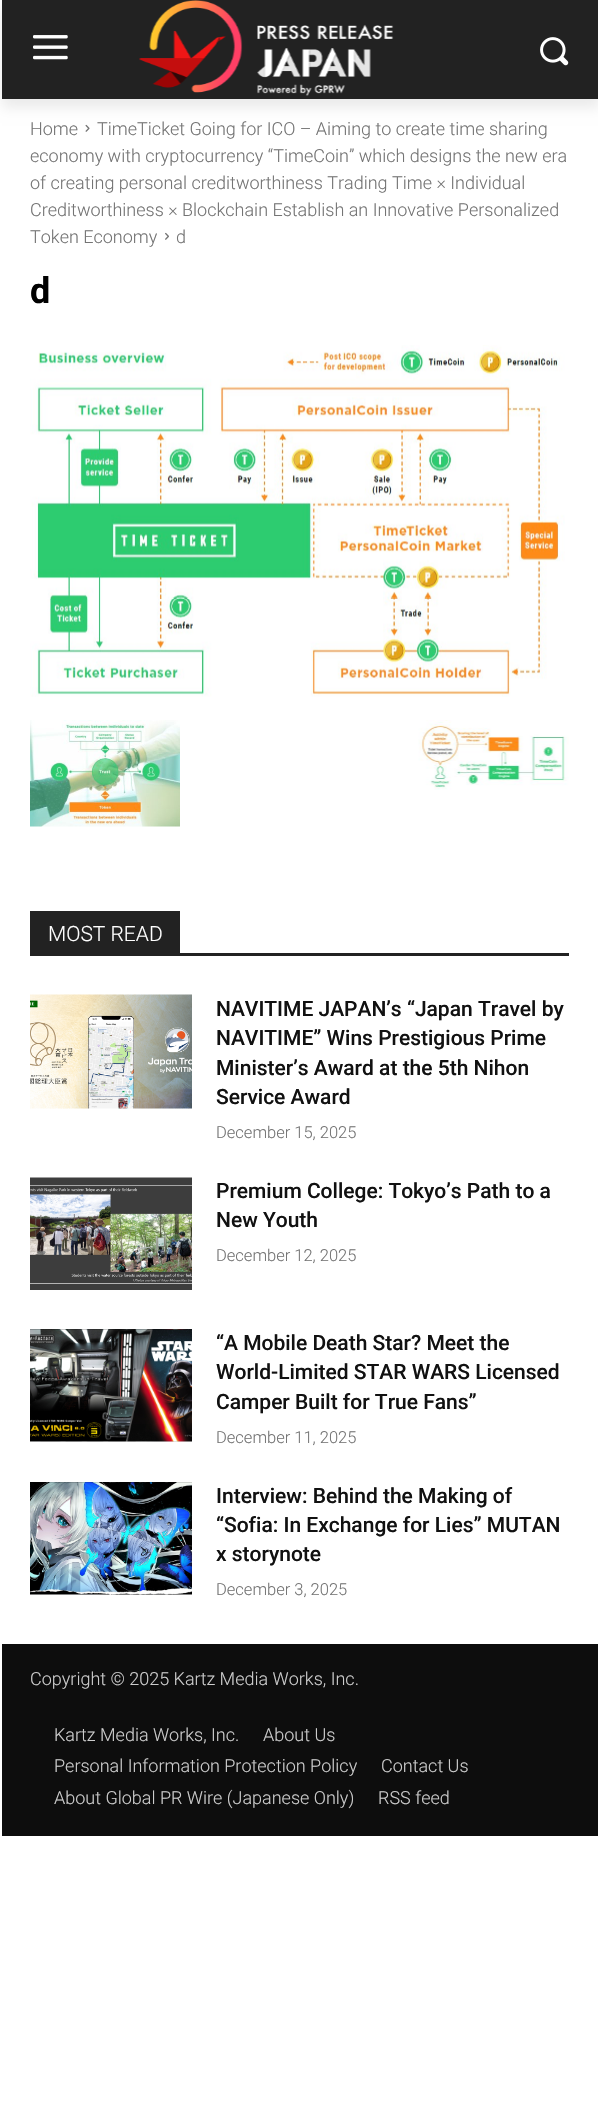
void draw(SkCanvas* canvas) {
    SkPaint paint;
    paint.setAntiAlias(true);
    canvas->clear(0xFFFFFFFF);
    paint.setColor(0xFF222222);
    canvas->drawRect(SkRect::MakeXYWH(2, 0, 596, 99), paint);
    canvas->drawImageRect(SkImages::DeferredFromEncodedData(SkData::MakeFromFileName("img1.png")), SkRect::MakeXYWH(33, 35, 35, 25), SkSamplingOptions());
    canvas->drawImageRect(SkImages::DeferredFromEncodedData(SkData::MakeFromFileName("img2.png")), SkRect::MakeXYWH(139, 0, 255, 96), SkSamplingOptions());
    canvas->drawImageRect(SkImages::DeferredFromEncodedData(SkData::MakeFromFileName("img3.png")), SkRect::MakeXYWH(540, 37, 29, 29), SkSamplingOptions());
    canvas->drawImageRect(SkImages::DeferredFromEncodedData(SkData::MakeFromFileName("img4.png")), SkRect::MakeXYWH(85, 124, 5, 8), SkSamplingOptions());
    canvas->save();
    canvas->clipPath(SkPathBuilder(SkPathFillType::kEvenOdd).moveTo(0, 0).lineTo(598, 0).lineTo(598, 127).lineTo(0, 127).close().moveTo(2, 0).lineTo(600, 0).lineTo(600, 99).lineTo(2, 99).close().detach(), true);
    paint.setColor(0x14000000);
    paint.setMaskFilter(SkMaskFilter::MakeBlur(kNormal_SkBlurStyle, 6));
    canvas->drawRect(SkRect::MakeXYWH(2, 9, 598, 99), paint);
    paint.setMaskFilter(nullptr);
    canvas->restore();
    SkFont font1(fontMgr->matchFamilyStyle("Roboto", SkFontStyle(300, SkFontStyle::kNormal_Width, SkFontStyle::kUpright_Slant)), 18);
    font1.setSubpixel(true);
    paint.setColor(0xFF747474);
    canvas->drawString("Home", 30, 135, font1, paint);
    canvas->drawString("TimeTicket Going for ICO – Aiming to create time sharing", 97, 135, font1, paint);
    canvas->drawString("economy with cryptocurrency “TimeCoin” which designs the new era", 30, 162, font1, paint);
    canvas->drawString("of creating personal creditworthiness Trading Time × Individual", 30, 189, font1, paint);
    canvas->drawString("Creditworthiness × Blockchain Establish an Innovative Personalized", 30, 216, font1, paint);
    canvas->drawString("Token Economy", 30, 243, font1, paint);
    canvas->drawImageRect(SkImages::DeferredFromEncodedData(SkData::MakeFromFileName("img5.png")), SkRect::MakeXYWH(165, 232, 4, 8), SkSamplingOptions());
    canvas->drawString("d", 176, 243, font1, paint);
    SkFont font2(fontMgr->matchFamilyStyle("Roboto", SkFontStyle::Bold()), 36);
    font2.setSubpixel(true);
    paint.setColor(0xFF000000);
    canvas->drawString("d", 30, 303, font2, paint);
    canvas->drawImageRect(SkImages::DeferredFromEncodedData(SkData::MakeFromFileName("img6.png")), SkRect::MakeXYWH(30, 345, 535, 352), SkSamplingOptions());
    canvas->drawImageRect(SkImages::DeferredFromEncodedData(SkData::MakeFromFileName("img7.png")), SkRect::MakeXYWH(30, 720, 150, 107), SkSamplingOptions());
    canvas->drawImageRect(SkImages::DeferredFromEncodedData(SkData::MakeFromFileName("img8.png")), SkRect::MakeXYWH(418, 720, 151, 70), SkSamplingOptions());
    paint.setColor(0xFF222222);
    canvas->drawRect(SkRect::MakeXYWH(30, 953, 539, 3), paint);
    canvas->drawRect(SkRect::MakeXYWH(30, 911, 150, 42), paint);
    SkFont font3(fontMgr->matchFamilyStyle("Roboto", SkFontStyle(300, SkFontStyle::kNormal_Width, SkFontStyle::kUpright_Slant)), 21);
    font3.setSubpixel(true);
    paint.setColor(0xFFFFFFFF);
    canvas->drawString("MOST READ", 48, 941, font3, paint);
    canvas->drawImageRect(SkImages::DeferredFromEncodedData(SkData::MakeFromFileName("img9.png")), SkRect::MakeXYWH(30, 994, 162, 115), SkSamplingOptions());
    SkFont font4(fontMgr->matchFamilyStyle("Roboto", SkFontStyle(500, SkFontStyle::kNormal_Width, SkFontStyle::kUpright_Slant)), 21);
    font4.setSubpixel(true);
    paint.setColor(0xFF111111);
    canvas->drawString("NAVITIME JAPAN’s “Japan Travel by", 216, 1016, font4, paint);
    canvas->drawString("NAVITIME” Wins Prestigious Prime", 216, 1045, font4, paint);
    canvas->drawString("Minister’s Award at the 5th Nihon", 216, 1075, font4, paint);
    canvas->drawString("Service Award", 216, 1104, font4, paint);
    SkFont font5(fontMgr->matchFamilyStyle("Roboto", SkFontStyle(300, SkFontStyle::kNormal_Width, SkFontStyle::kUpright_Slant)), 16.5f);
    font5.setSubpixel(true);
    paint.setColor(0xFF747474);
    canvas->drawString("December 15, 2025", 216, 1138, font5, paint);
    canvas->drawImageRect(SkImages::DeferredFromEncodedData(SkData::MakeFromFileName("img10.png")), SkRect::MakeXYWH(30, 1177, 162, 113), SkSamplingOptions());
    paint.setColor(0xFF111111);
    canvas->drawString("Premium College: Tokyo’s Path to a", 216, 1198, font4, paint);
    canvas->drawString("New Youth", 216, 1227, font4, paint);
    paint.setColor(0xFF747474);
    canvas->drawString("December 12, 2025", 216, 1261, font5, paint);
    canvas->drawImageRect(SkImages::DeferredFromEncodedData(SkData::MakeFromFileName("img11.png")), SkRect::MakeXYWH(30, 1329, 162, 113), SkSamplingOptions());
    paint.setColor(0xFF111111);
    canvas->drawString("“A Mobile Death Star? Meet the", 216, 1350, font4, paint);
    canvas->drawString("World-Limited STAR WARS Licensed", 216, 1379, font4, paint);
    canvas->drawString("Camper Built for True Fans”", 216, 1409, font4, paint);
    paint.setColor(0xFF747474);
    canvas->drawString("December 11, 2025", 216, 1443, font5, paint);
    canvas->drawImageRect(SkImages::DeferredFromEncodedData(SkData::MakeFromFileName("img12.png")), SkRect::MakeXYWH(30, 1482, 162, 113), SkSamplingOptions());
    paint.setColor(0xFF111111);
    canvas->drawString("Interview: Behind the Making of", 216, 1503, font4, paint);
    canvas->drawString("“Sofia: In Exchange for Lies” MUTAN", 216, 1532, font4, paint);
    canvas->drawString("x storynote", 216, 1561, font4, paint);
    paint.setColor(0xFF747474);
    canvas->drawString("December 3, 2025", 216, 1595, font5, paint);
    paint.setColor(0xFF0D0D0D);
    canvas->drawRect(SkRect::MakeXYWH(2, 1644, 596, 192), paint);
    paint.setColor(0xFFCCCCCC);
    canvas->drawString("Copyright © 2025 Kartz Media Works, Inc.", 30, 1685, font1, paint);
    canvas->drawString("Kartz Media Works, Inc.", 54, 1741, font1, paint);
    canvas->drawString("About Us", 263, 1741, font1, paint);
    canvas->drawString("Personal Information Protection Policy", 54, 1772, font1, paint);
    canvas->drawString("Contact Us", 381, 1772, font1, paint);
    canvas->drawString("About Global PR Wire (Japanese Only)", 54, 1804, font1, paint);
    canvas->drawString("RSS feed", 378, 1804, font1, paint);
}
